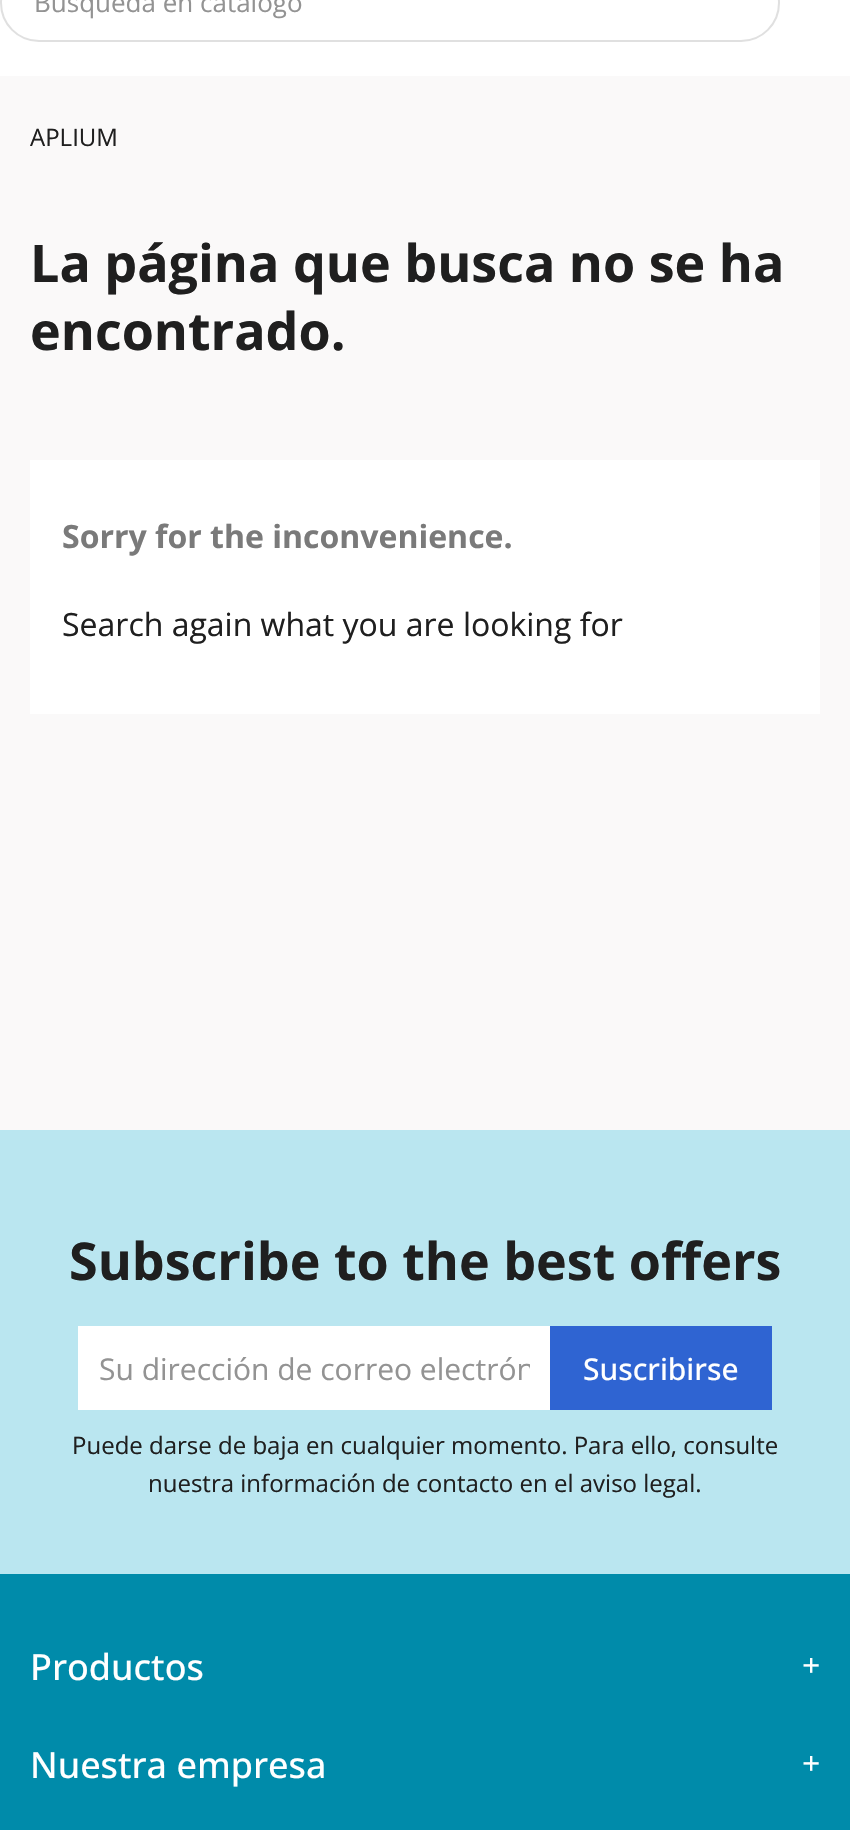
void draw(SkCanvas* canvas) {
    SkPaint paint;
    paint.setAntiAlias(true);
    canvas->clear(0xFFFAF9F9);
    paint.setColor(0xFFFFFFFF);
    canvas->drawRect(SkRect::MakeXYWH(0, 0, 850, 76), paint);
    paint.setStyle(SkPaint::kStroke_Style);
    paint.setStrokeWidth(2);
    paint.setColor(0xFFE0E0E0);
    canvas->drawRoundRect(SkRect::MakeXYWH(1, -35, 778, 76), 38, 38, paint);
    SkFont font1(fontMgr->matchFamilyStyle("Open Sans", SkFontStyle::Normal()), 26);
    font1.setSubpixel(true);
    paint.setStyle(SkPaint::kFill_Style);
    paint.setColor(0xFF939393);
    canvas->drawString("Búsqueda en catálogo", 34, 12, font1, paint);
    SkFont font2(fontMgr->matchFamilyStyle("Open Sans", SkFontStyle::Normal()), 24);
    font2.setSubpixel(true);
    paint.setColor(0xFF1F1F1F);
    canvas->drawString("APLIUM", 30, 146, font2, paint);
    SkFont font3(fontMgr->matchFamilyStyle("Open Sans", SkFontStyle::Bold()), 52);
    font3.setSubpixel(true);
    canvas->drawString("La página que busca no se ha", 30, 282, font3, paint);
    canvas->drawString("encontrado.", 30, 350, font3, paint);
    paint.setColor(0xFFFFFFFF);
    canvas->drawRect(SkRect::MakeXYWH(30, 460, 790, 254), paint);
    SkFont font4(fontMgr->matchFamilyStyle("Open Sans", SkFontStyle::Bold()), 32);
    font4.setSubpixel(true);
    paint.setColor(0xFF7A7A7A);
    canvas->drawString("Sorry for the inconvenience.", 62, 548, font4, paint);
    SkFont font5(fontMgr->matchFamilyStyle("Open Sans", SkFontStyle::Normal()), 32);
    font5.setSubpixel(true);
    paint.setColor(0xFF1F1F1F);
    canvas->drawString("Search again what you are looking for", 62, 636, font5, paint);
    paint.setColor(0xFF008BAA);
    canvas->drawRect(SkRect::MakeXYWH(0, 1574, 850, 256), paint);
    paint.setColor(0xFFBAE6F0);
    canvas->drawRect(SkRect::MakeXYWH(0, 1130, 850, 444), paint);
    paint.setColor(0xFF1F1F1F);
    canvas->drawString("Subscribe to the best offers", 69, 1280, font3, paint);
    paint.setColor(0xFFFFFFFF);
    canvas->drawRect(SkRect::MakeXYWH(78, 1326, 472, 84), paint);
    canvas->save();
    canvas->clipRect(SkRect::MakeXYWH(100, 1348, 430, 40));
    SkFont font6(fontMgr->matchFamilyStyle("Open Sans", SkFontStyle::Normal()), 30);
    font6.setSubpixel(true);
    paint.setColor(0xFF939393);
    canvas->drawString("Su dirección de correo electrón", 99, 1380, font6, paint);
    canvas->restore();
    paint.setColor(0xFF2F64D2);
    canvas->drawRect(SkRect::MakeXYWH(550, 1326, 222, 84), paint);
    SkFont font7(fontMgr->matchFamilyStyle("Open Sans", SkFontStyle(500, SkFontStyle::kNormal_Width, SkFontStyle::kUpright_Slant)), 30);
    font7.setSubpixel(true);
    paint.setColor(0xFFFFFFFF);
    canvas->drawString("Suscribirse", 583, 1380, font7, paint);
    paint.setColor(0xFF1F1F1F);
    canvas->drawString("Puede darse de baja en cualquier momento. Para ello, consulte", 72, 1454, font2, paint);
    canvas->drawString("nuestra información de contacto en el aviso legal.", 148, 1492, font2, paint);
    SkFont font8(fontMgr->matchFamilyStyle("Open Sans", SkFontStyle(500, SkFontStyle::kNormal_Width, SkFontStyle::kUpright_Slant)), 36);
    font8.setSubpixel(true);
    paint.setColor(0xFFFFFFFF);
    canvas->drawString("Productos", 30, 1680, font8, paint);
    SkFont font9(fontMgr->matchFamilyStyle("Liberation Serif", SkFontStyle::Bold()), 32);
    font9.setSubpixel(true);
    canvas->drawString("+", 802, 1676, font9, paint);
    canvas->drawString("Nuestra empresa", 30, 1778, font8, paint);
    canvas->drawString("+", 802, 1774, font9, paint);
}
